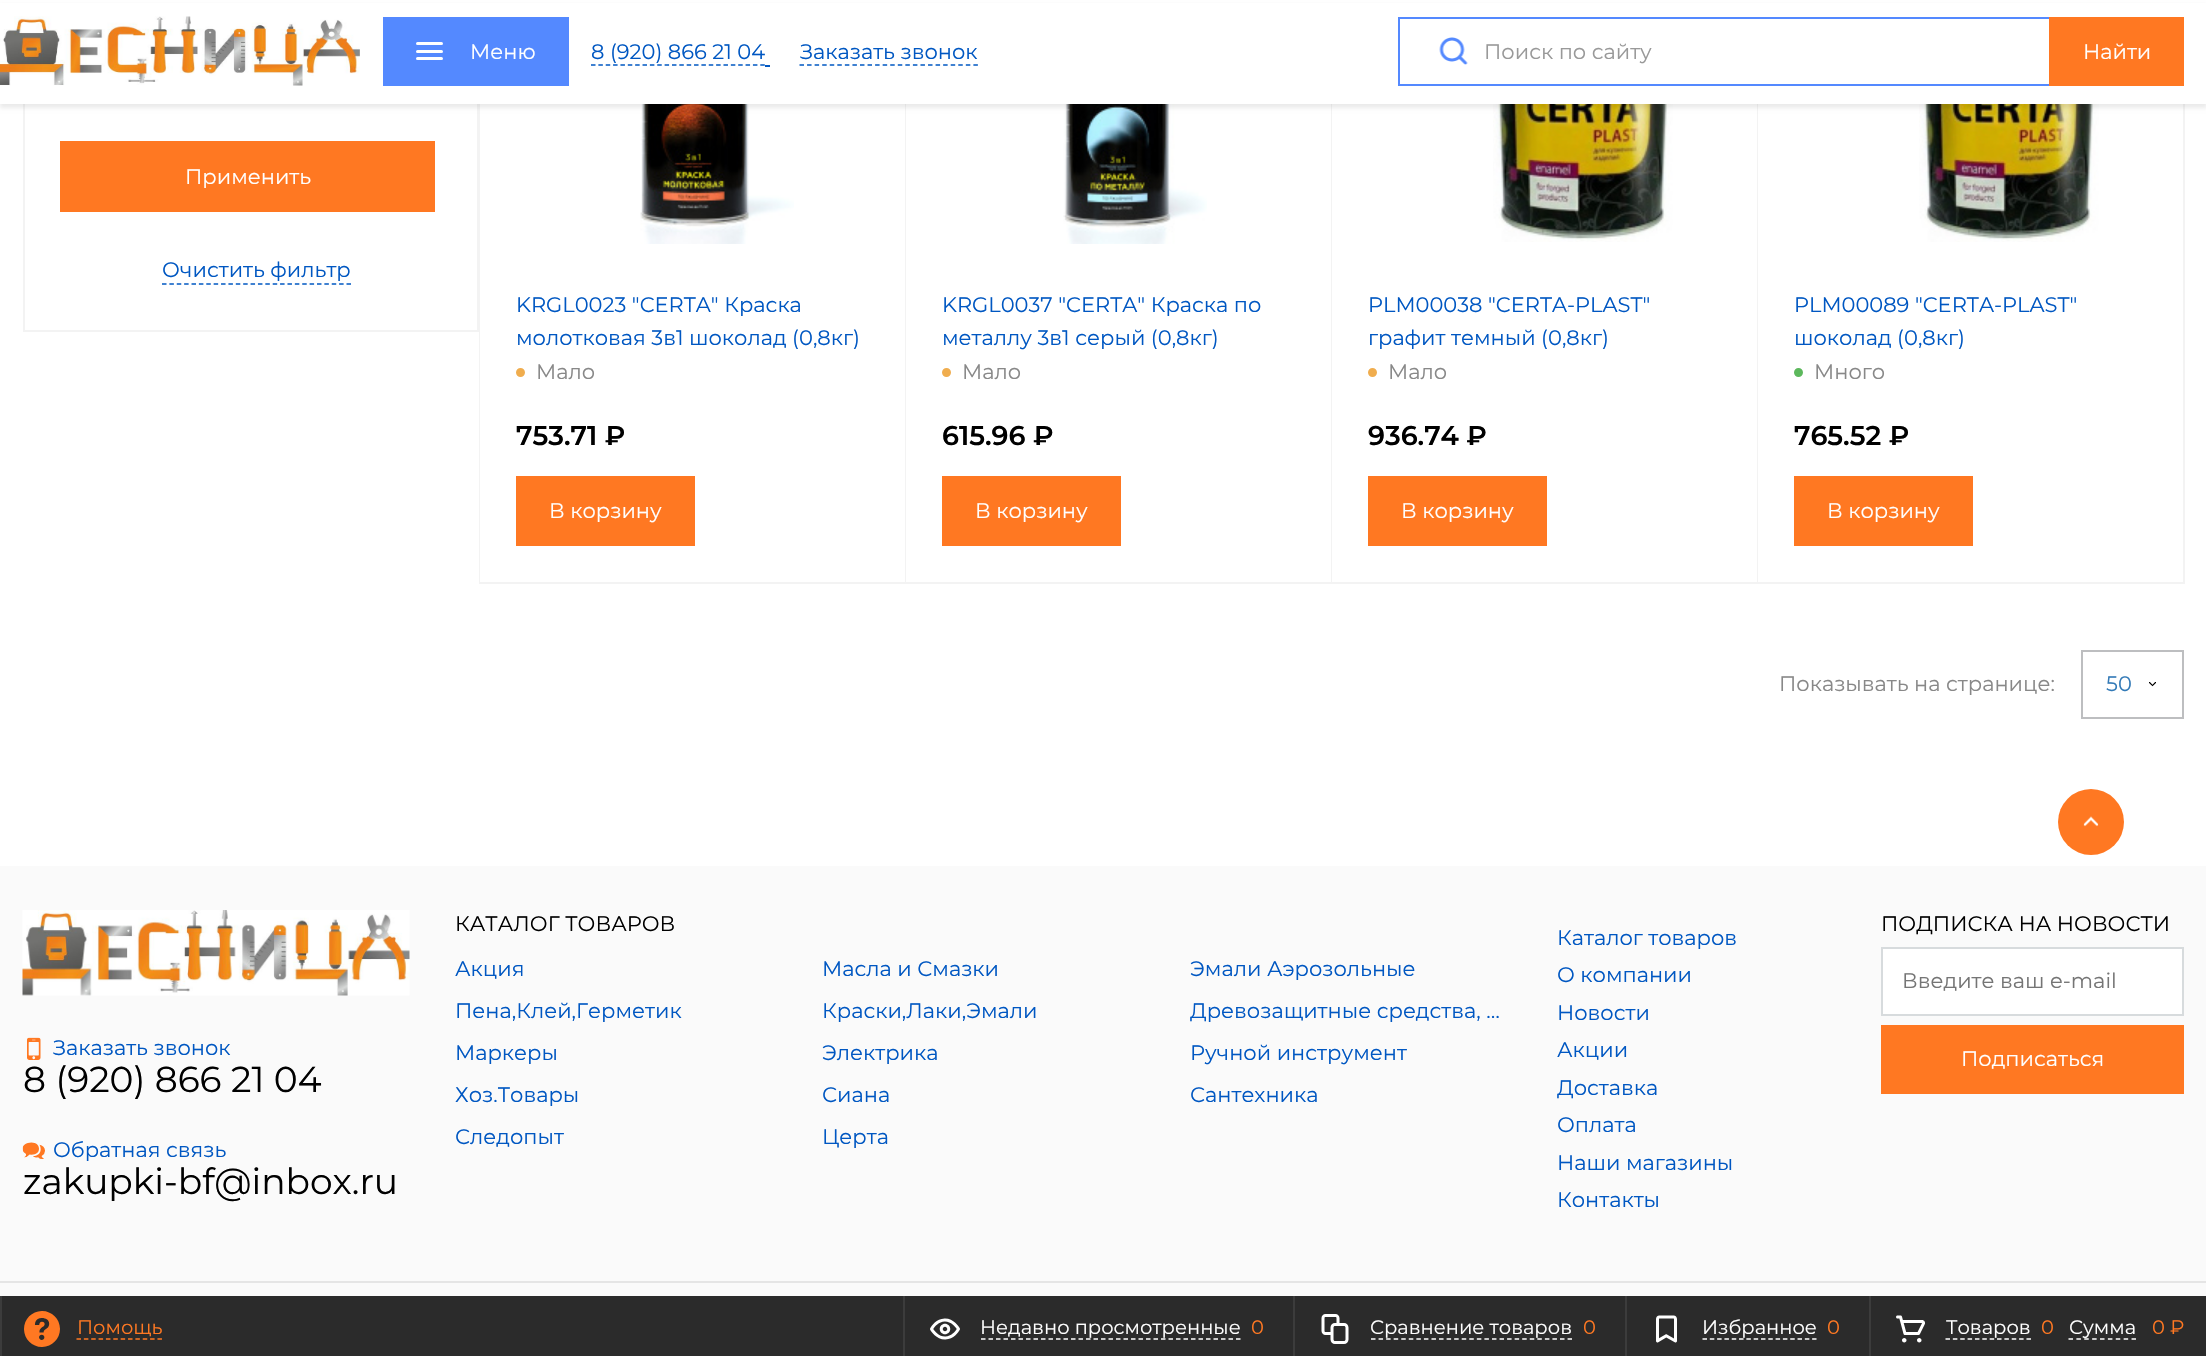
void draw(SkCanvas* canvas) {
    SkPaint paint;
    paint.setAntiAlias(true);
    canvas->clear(0xFFFFFFFF);
    paint.setColor(0xFFF3F3F3);
    canvas->drawRect(SkRect::MakeXYWH(477, 104, 2, 228), paint);
    canvas->drawRect(SkRect::MakeXYWH(23, 330, 456, 2), paint);
    canvas->drawRect(SkRect::MakeXYWH(23, 104, 2, 228), paint);
    canvas->drawRect(SkRect::MakeXYWH(479, 104, 1, 480), paint);
    canvas->drawRect(SkRect::MakeXYWH(905, 104, 1, 480), paint);
    canvas->drawImageRect(SkImages::DeferredFromEncodedData(SkData::MakeFromFileName("img3.png")), SkRect::MakeXYWH(640, 104, 154, 140), SkSamplingOptions());
    canvas->drawRect(SkRect::MakeXYWH(1331, 104, 1, 480), paint);
    canvas->drawImageRect(SkImages::DeferredFromEncodedData(SkData::MakeFromFileName("img4.png")), SkRect::MakeXYWH(1063, 104, 144, 140), SkSamplingOptions());
    canvas->drawRect(SkRect::MakeXYWH(1757, 104, 1, 480), paint);
    canvas->drawImageRect(SkImages::DeferredFromEncodedData(SkData::MakeFromFileName("img5.png")), SkRect::MakeXYWH(1493, 104, 180, 138), SkSamplingOptions());
    canvas->drawRect(SkRect::MakeXYWH(2183, 104, 2, 480), paint);
    canvas->drawImageRect(SkImages::DeferredFromEncodedData(SkData::MakeFromFileName("img6.png")), SkRect::MakeXYWH(1919, 104, 180, 138), SkSamplingOptions());
    paint.setColor(0x14000000);
    paint.setMaskFilter(SkMaskFilter::MakeBlur(kNormal_SkBlurStyle, 2));
    canvas->drawRect(SkRect::MakeXYWH(0, 5, 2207, 103), paint);
    paint.setMaskFilter(nullptr);
    paint.setColor(0xFFFFFFFF);
    canvas->drawRect(SkRect::MakeXYWH(0, 3, 2206, 101), paint);
    canvas->drawImageRect(SkImages::DeferredFromEncodedData(SkData::MakeFromFileName("img1.png")), SkRect::MakeXYWH(0, 16, 360, 70), SkSamplingOptions());
    paint.setColor(0xFF5489FF);
    canvas->drawRect(SkRect::MakeXYWH(383, 17, 186, 69), paint);
    paint.setColor(0xFFFFFFFF);
    canvas->drawRoundRect(SkRect::MakeXYWH(416, 42, 27, 3), 1.5f, 1.5f, paint);
    canvas->drawRoundRect(SkRect::MakeXYWH(416, 50, 27, 3), 1.5f, 1.5f, paint);
    canvas->drawRoundRect(SkRect::MakeXYWH(416, 57, 27, 3), 1.5f, 1.5f, paint);
    SkFont font1(fontMgr->matchFamilyStyle("Montserrat", SkFontStyle::Normal()), 21);
    font1.setSubpixel(true);
    canvas->drawString("Меню", 470, 59, font1, paint);
    paint.setColor(0xFF0057C2);
    canvas->drawString("8 (920) 866 21 04", 591, 59, font1, paint);
    paint.setStyle(SkPaint::kStroke_Style);
    paint.setStrokeWidth(1.5f);
    paint.setPathEffect(SkDashPathEffect::Make({{4.5f, 2.86f}}, 0));
    canvas->drawPath(SkPathBuilder().moveTo(591, 65).lineTo(765, 65).detach(), paint);
    paint.setPathEffect(nullptr);
    paint.setStyle(SkPaint::kFill_Style);
    canvas->drawRect(SkRect::MakeXYWH(765, 65, 5, 2), paint);
    canvas->drawString("Заказать звонок", 800, 59, font1, paint);
    paint.setStyle(SkPaint::kStroke_Style);
    paint.setPathEffect(SkDashPathEffect::Make({{4.5f, 3.06f}}, 0));
    canvas->drawPath(SkPathBuilder().moveTo(799.5f, 65).lineTo(978, 65).detach(), paint);
    paint.setPathEffect(nullptr);
    paint.setStrokeWidth(2);
    paint.setColor(0xFF5489FF);
    canvas->drawRect(SkRect::MakeXYWH(1399, 18, 651, 67), paint);
    canvas->drawImageRect(SkImages::DeferredFromEncodedData(SkData::MakeFromFileName("img2.png")), SkRect::MakeXYWH(1439, 37, 29, 28), SkSamplingOptions());
    paint.setStyle(SkPaint::kFill_Style);
    paint.setColor(0xFF999999);
    canvas->drawString("Поиск по сайту", 1484, 59, font1, paint);
    paint.setColor(0xFFFF7822);
    canvas->drawRect(SkRect::MakeXYWH(2049, 17, 135, 69), paint);
    paint.setColor(0xFFFFFFFF);
    canvas->drawString("Найти", 2083, 59, font1, paint);
    paint.setColor(0xFFFF7822);
    canvas->drawRect(SkRect::MakeXYWH(60, 141, 375, 71), paint);
    paint.setColor(0xFFFFFFFF);
    canvas->drawString("Применить", 185, 184, font1, paint);
    paint.setColor(0xFF0057C2);
    canvas->drawString("Очистить фильтр", 162, 277, font1, paint);
    paint.setStyle(SkPaint::kStroke_Style);
    paint.setStrokeWidth(1.5f);
    paint.setPathEffect(SkDashPathEffect::Make({{4.5f, 2.88f}}, 0));
    canvas->drawPath(SkPathBuilder().moveTo(162, 284).lineTo(351, 284).detach(), paint);
    paint.setPathEffect(nullptr);
    paint.setStyle(SkPaint::kFill_Style);
    paint.setColor(0xFFF3F3F3);
    canvas->drawRect(SkRect::MakeXYWH(480, 582, 426, 2), paint);
    paint.setColor(0xFF0057C2);
    canvas->drawString("KRGL0023 \"CERTA\" Краска", 516, 312, font1, paint);
    canvas->drawString("молотковая 3в1 шоколад (0,8кг)", 516, 345, font1, paint);
    paint.setColor(0xFFF0AD4E);
    canvas->drawCircle(520.5f, 372.5f, 3.5f, paint);
    paint.setStyle(SkPaint::kStroke_Style);
    paint.setStrokeWidth(2);
    canvas->drawCircle(520.5f, 372.5f, 3.5f, paint);
    paint.setStyle(SkPaint::kFill_Style);
    paint.setColor(0xFF888888);
    canvas->drawString("Мало", 536, 379, font1, paint);
    SkFont font2(fontMgr->matchFamilyStyle("Montserrat", SkFontStyle(600, SkFontStyle::kNormal_Width, SkFontStyle::kUpright_Slant)), 27);
    font2.setSubpixel(true);
    paint.setColor(0xFF000000);
    canvas->drawString("753.71 ₽", 516, 445, font2, paint);
    paint.setColor(0xFFFF7822);
    canvas->drawRect(SkRect::MakeXYWH(516, 476, 179, 70), paint);
    paint.setColor(0xFFFFFFFF);
    canvas->drawString("В корзину", 549, 518, font1, paint);
    paint.setColor(0xFFF3F3F3);
    canvas->drawRect(SkRect::MakeXYWH(906, 582, 426, 2), paint);
    paint.setColor(0xFF0057C2);
    canvas->drawString("KRGL0037 \"CERTA\" Краска по", 942, 312, font1, paint);
    canvas->drawString("металлу 3в1 серый (0,8кг)", 942, 345, font1, paint);
    paint.setColor(0xFFF0AD4E);
    canvas->drawCircle(946.5f, 372.5f, 3.5f, paint);
    paint.setStyle(SkPaint::kStroke_Style);
    canvas->drawCircle(946.5f, 372.5f, 3.5f, paint);
    paint.setStyle(SkPaint::kFill_Style);
    paint.setColor(0xFF888888);
    canvas->drawString("Мало", 962, 379, font1, paint);
    paint.setColor(0xFF000000);
    canvas->drawString("615.96 ₽", 942, 445, font2, paint);
    paint.setColor(0xFFFF7822);
    canvas->drawRect(SkRect::MakeXYWH(942, 476, 179, 70), paint);
    paint.setColor(0xFFFFFFFF);
    canvas->drawString("В корзину", 975, 518, font1, paint);
    paint.setColor(0xFFF3F3F3);
    canvas->drawRect(SkRect::MakeXYWH(1332, 582, 426, 2), paint);
    paint.setColor(0xFF0057C2);
    canvas->drawString("PLM00038 \"CERTA-PLAST\"", 1368, 312, font1, paint);
    canvas->drawString("графит темный (0,8кг)", 1368, 345, font1, paint);
    paint.setColor(0xFFF0AD4E);
    canvas->drawCircle(1372.5f, 372.5f, 3.5f, paint);
    paint.setStyle(SkPaint::kStroke_Style);
    canvas->drawCircle(1372.5f, 372.5f, 3.5f, paint);
    paint.setStyle(SkPaint::kFill_Style);
    paint.setColor(0xFF888888);
    canvas->drawString("Мало", 1388, 379, font1, paint);
    paint.setColor(0xFF000000);
    canvas->drawString("936.74 ₽", 1368, 445, font2, paint);
    paint.setColor(0xFFFF7822);
    canvas->drawRect(SkRect::MakeXYWH(1368, 476, 179, 70), paint);
    paint.setColor(0xFFFFFFFF);
    canvas->drawString("В корзину", 1401, 518, font1, paint);
    paint.setColor(0xFFF3F3F3);
    canvas->drawRect(SkRect::MakeXYWH(1758, 582, 426, 2), paint);
    paint.setColor(0xFF0057C2);
    canvas->drawString("PLM00089 \"CERTA-PLAST\"", 1794, 312, font1, paint);
    canvas->drawString("шоколад (0,8кг)", 1794, 345, font1, paint);
    paint.setColor(0xFF5CB85C);
    canvas->drawCircle(1798.5f, 372.5f, 3.5f, paint);
    paint.setStyle(SkPaint::kStroke_Style);
    canvas->drawCircle(1798.5f, 372.5f, 3.5f, paint);
    paint.setStyle(SkPaint::kFill_Style);
    paint.setColor(0xFF888888);
    canvas->drawString("Много", 1814, 379, font1, paint);
    paint.setColor(0xFF000000);
    canvas->drawString("765.52 ₽", 1794, 445, font2, paint);
    paint.setColor(0xFFFF7822);
    canvas->drawRect(SkRect::MakeXYWH(1794, 476, 179, 70), paint);
    paint.setColor(0xFFFFFFFF);
    canvas->drawString("В корзину", 1827, 518, font1, paint);
    paint.setColor(0xFF888888);
    canvas->drawString("Показывать на странице:", 1779, 691, font1, paint);
    paint.setStyle(SkPaint::kStroke_Style);
    paint.setColor(0xFFBDBEC0);
    canvas->drawRect(SkRect::MakeXYWH(2082, 651, 101, 67), paint);
    paint.setStyle(SkPaint::kFill_Style);
    paint.setColor(0xFF337AB7);
    canvas->drawString("50", 2106, 691, font1, paint);
    canvas->drawImageRect(SkImages::DeferredFromEncodedData(SkData::MakeFromFileName("img7.png")), SkRect::MakeXYWH(2149, 682, 7, 5), SkSamplingOptions());
    paint.setColor(0xFFFF7822);
    canvas->drawCircle(2091, 822, 33, paint);
    canvas->drawImageRect(SkImages::DeferredFromEncodedData(SkData::MakeFromFileName("img8.png")), SkRect::MakeXYWH(2083, 816, 16, 11), SkSamplingOptions());
    paint.setColor(0xFFFAFAFA);
    canvas->drawRect(SkRect::MakeXYWH(0, 866, 2206, 430), paint);
    canvas->drawImageRect(SkImages::DeferredFromEncodedData(SkData::MakeFromFileName("img9.png")), SkRect::MakeXYWH(22, 910, 388, 86), SkSamplingOptions());
    canvas->drawImageRect(SkImages::DeferredFromEncodedData(SkData::MakeFromFileName("img10.png")), SkRect::MakeXYWH(27, 1037, 14, 23), SkSamplingOptions());
    paint.setColor(0xFF0057C2);
    canvas->drawString("Заказать звонок", 53, 1055, font1, paint);
    SkFont font3(fontMgr->matchFamilyStyle("Montserrat", SkFontStyle::Normal()), 36);
    font3.setSubpixel(true);
    paint.setColor(0xFF000000);
    canvas->drawString("8 (920) 866 21 04", 23, 1092, font3, paint);
    canvas->drawImageRect(SkImages::DeferredFromEncodedData(SkData::MakeFromFileName("img11.png")), SkRect::MakeXYWH(22, 1142, 23, 17), SkSamplingOptions());
    paint.setColor(0xFF0057C2);
    canvas->drawString("Обратная связь", 53, 1157, font1, paint);
    paint.setColor(0xFF000000);
    canvas->drawString("zakupki-bf@inbox.ru", 23, 1194, font3, paint);
    canvas->drawString("КАТАЛОГ ТОВАРОВ", 455, 931, font1, paint);
    paint.setColor(0xFF0057C2);
    canvas->drawString("Акция", 455, 976, font1, paint);
    canvas->drawString("Масла и Смазки", 822, 976, font1, paint);
    canvas->drawString("Эмали Аэрозольные", 1190, 976, font1, paint);
    canvas->drawString("Пена,Клей,Герметик", 455, 1018, font1, paint);
    canvas->drawString("Краски,Лаки,Эмали", 822, 1018, font1, paint);
    canvas->save();
    canvas->clipRect(SkRect::MakeXYWH(1190, 998, 322, 27));
    canvas->drawString("Древозащитные средства, …", 1190, 1018, font1, paint);
    canvas->restore();
    canvas->drawString("Маркеры", 455, 1060, font1, paint);
    canvas->drawString("Электрика", 822, 1060, font1, paint);
    canvas->drawString("Ручной инструмент", 1190, 1060, font1, paint);
    canvas->drawString("Хоз.Товары", 455, 1102, font1, paint);
    canvas->drawString("Сиана", 822, 1102, font1, paint);
    canvas->drawString("Сантехника", 1190, 1102, font1, paint);
    canvas->drawString("Следопыт", 455, 1144, font1, paint);
    canvas->drawString("Церта", 822, 1144, font1, paint);
    canvas->drawString("Каталог товаров", 1557, 945, font1, paint);
    canvas->drawString("О компании", 1557, 982, font1, paint);
    canvas->drawString("Новости", 1557, 1020, font1, paint);
    canvas->drawString("Акции", 1557, 1057, font1, paint);
    canvas->drawString("Доставка", 1557, 1095, font1, paint);
    canvas->drawString("Оплата", 1557, 1132, font1, paint);
    canvas->drawString("Наши магазины", 1557, 1170, font1, paint);
    canvas->drawString("Контакты", 1557, 1207, font1, paint);
    paint.setColor(0xFF000000);
    canvas->drawString("ПОДПИСКА НА НОВОСТИ", 1881, 931, font1, paint);
    paint.setColor(0xFFFFFFFF);
    canvas->drawRect(SkRect::MakeXYWH(1882, 948, 301, 67), paint);
    paint.setStyle(SkPaint::kStroke_Style);
    paint.setColor(0xFFD7DBDD);
    canvas->drawRect(SkRect::MakeXYWH(1882, 948, 301, 67), paint);
    paint.setStyle(SkPaint::kFill_Style);
    paint.setColor(0xFF757575);
    canvas->drawString("Введите ваш e-mail", 1902, 988, font1, paint);
    paint.setColor(0xFFFF7822);
    canvas->drawRect(SkRect::MakeXYWH(1881, 1025, 303, 69), paint);
    paint.setColor(0xFFFFFFFF);
    canvas->drawString("Подписаться", 1961, 1066, font1, paint);
    paint.setColor(0xFFE5E5E5);
    canvas->drawRect(SkRect::MakeXYWH(0, 1281, 2206, 2), paint);
    paint.setColor(0xFF2B2B2B);
    canvas->drawRect(SkRect::MakeXYWH(2, 1296, 2204, 60), paint);
    paint.setColor(0xFF3C3C3C);
    canvas->drawRect(SkRect::MakeXYWH(0, 1296, 2, 60), paint);
    canvas->drawImageRect(SkImages::DeferredFromEncodedData(SkData::MakeFromFileName("img12.png")), SkRect::MakeXYWH(24, 1311, 36, 36), SkSamplingOptions());
    SkFont font4(fontMgr->matchFamilyStyle("Montserrat", SkFontStyle::Normal()), 19.5f);
    font4.setSubpixel(true);
    paint.setColor(0xFFFF7822);
    canvas->drawString("Помощь", 77, 1334, font4, paint);
    paint.setStyle(SkPaint::kStroke_Style);
    paint.setStrokeWidth(1.5f);
    paint.setPathEffect(SkDashPathEffect::Make({{4.5f, 2.86f}}, 0));
    canvas->drawPath(SkPathBuilder().moveTo(76.5f, 1339).lineTo(162, 1339).detach(), paint);
    paint.setPathEffect(nullptr);
    paint.setStyle(SkPaint::kFill_Style);
    paint.setColor(0xFF3C3C3C);
    canvas->drawRect(SkRect::MakeXYWH(903, 1296, 2, 60), paint);
    canvas->drawImageRect(SkImages::DeferredFromEncodedData(SkData::MakeFromFileName("img13.png")), SkRect::MakeXYWH(930, 1318, 30, 22), SkSamplingOptions());
    paint.setColor(0xFFFFFFFF);
    canvas->drawString("Недавно просмотренные", 980, 1334, font4, paint);
    paint.setStyle(SkPaint::kStroke_Style);
    paint.setPathEffect(SkDashPathEffect::Make({{4.5f, 3}}, 0));
    canvas->drawPath(SkPathBuilder().moveTo(981, 1339).lineTo(1240.5f, 1339).detach(), paint);
    paint.setPathEffect(nullptr);
    paint.setStyle(SkPaint::kFill_Style);
    paint.setColor(0xFFFF7822);
    canvas->drawString("0", 1251, 1334, font4, paint);
    paint.setColor(0xFF3C3C3C);
    canvas->drawRect(SkRect::MakeXYWH(1293, 1296, 2, 60), paint);
    canvas->drawImageRect(SkImages::DeferredFromEncodedData(SkData::MakeFromFileName("img14.png")), SkRect::MakeXYWH(1321, 1314, 28, 30), SkSamplingOptions());
    paint.setColor(0xFFFFFFFF);
    canvas->drawString("Сравнение товаров", 1370, 1334, font4, paint);
    paint.setStyle(SkPaint::kStroke_Style);
    paint.setPathEffect(SkDashPathEffect::Make({{4.5f, 3.06f}}, 0));
    canvas->drawPath(SkPathBuilder().moveTo(1371, 1339).lineTo(1572, 1339).detach(), paint);
    paint.setPathEffect(nullptr);
    paint.setStyle(SkPaint::kFill_Style);
    paint.setColor(0xFFFF7822);
    canvas->drawString("0", 1583, 1334, font4, paint);
    paint.setColor(0xFF3C3C3C);
    canvas->drawRect(SkRect::MakeXYWH(1625, 1296, 2, 60), paint);
    canvas->drawImageRect(SkImages::DeferredFromEncodedData(SkData::MakeFromFileName("img15.png")), SkRect::MakeXYWH(1656, 1315, 21, 28), SkSamplingOptions());
    paint.setColor(0xFFFFFFFF);
    canvas->drawString("Избранное", 1702, 1334, font4, paint);
    paint.setStyle(SkPaint::kStroke_Style);
    paint.setPathEffect(SkDashPathEffect::Make({{4.5f, 2.81f}}, 0));
    canvas->drawPath(SkPathBuilder().moveTo(1702.5f, 1339).lineTo(1816.5f, 1339).detach(), paint);
    paint.setPathEffect(nullptr);
    paint.setStyle(SkPaint::kFill_Style);
    paint.setColor(0xFFFF7822);
    canvas->drawString("0", 1827, 1334, font4, paint);
    paint.setColor(0xFF3C3C3C);
    canvas->drawRect(SkRect::MakeXYWH(1869, 1296, 2, 60), paint);
    canvas->drawImageRect(SkImages::DeferredFromEncodedData(SkData::MakeFromFileName("img16.png")), SkRect::MakeXYWH(1896, 1315, 29, 28), SkSamplingOptions());
    paint.setColor(0xFFFFFFFF);
    canvas->drawString("Товаров", 1946, 1334, font4, paint);
    paint.setStyle(SkPaint::kStroke_Style);
    paint.setPathEffect(SkDashPathEffect::Make({{4.5f, 2.86f}}, 0));
    canvas->drawPath(SkPathBuilder().moveTo(1945.5f, 1339).lineTo(2031, 1339).detach(), paint);
    paint.setPathEffect(nullptr);
    paint.setStyle(SkPaint::kFill_Style);
    paint.setColor(0xFFFF7822);
    canvas->drawString("0", 2041, 1334, font4, paint);
    paint.setColor(0xFFFFFFFF);
    canvas->drawString("Сумма", 2069, 1334, font4, paint);
    paint.setStyle(SkPaint::kStroke_Style);
    paint.setPathEffect(SkDashPathEffect::Make({{4.5f, 3.38f}}, 0));
    canvas->drawPath(SkPathBuilder().moveTo(2068.5f, 1339).lineTo(2136, 1339).detach(), paint);
    paint.setPathEffect(nullptr);
    paint.setStyle(SkPaint::kFill_Style);
    paint.setColor(0xFFFF7822);
    canvas->drawString("0 ₽", 2152, 1334, font4, paint);
}
